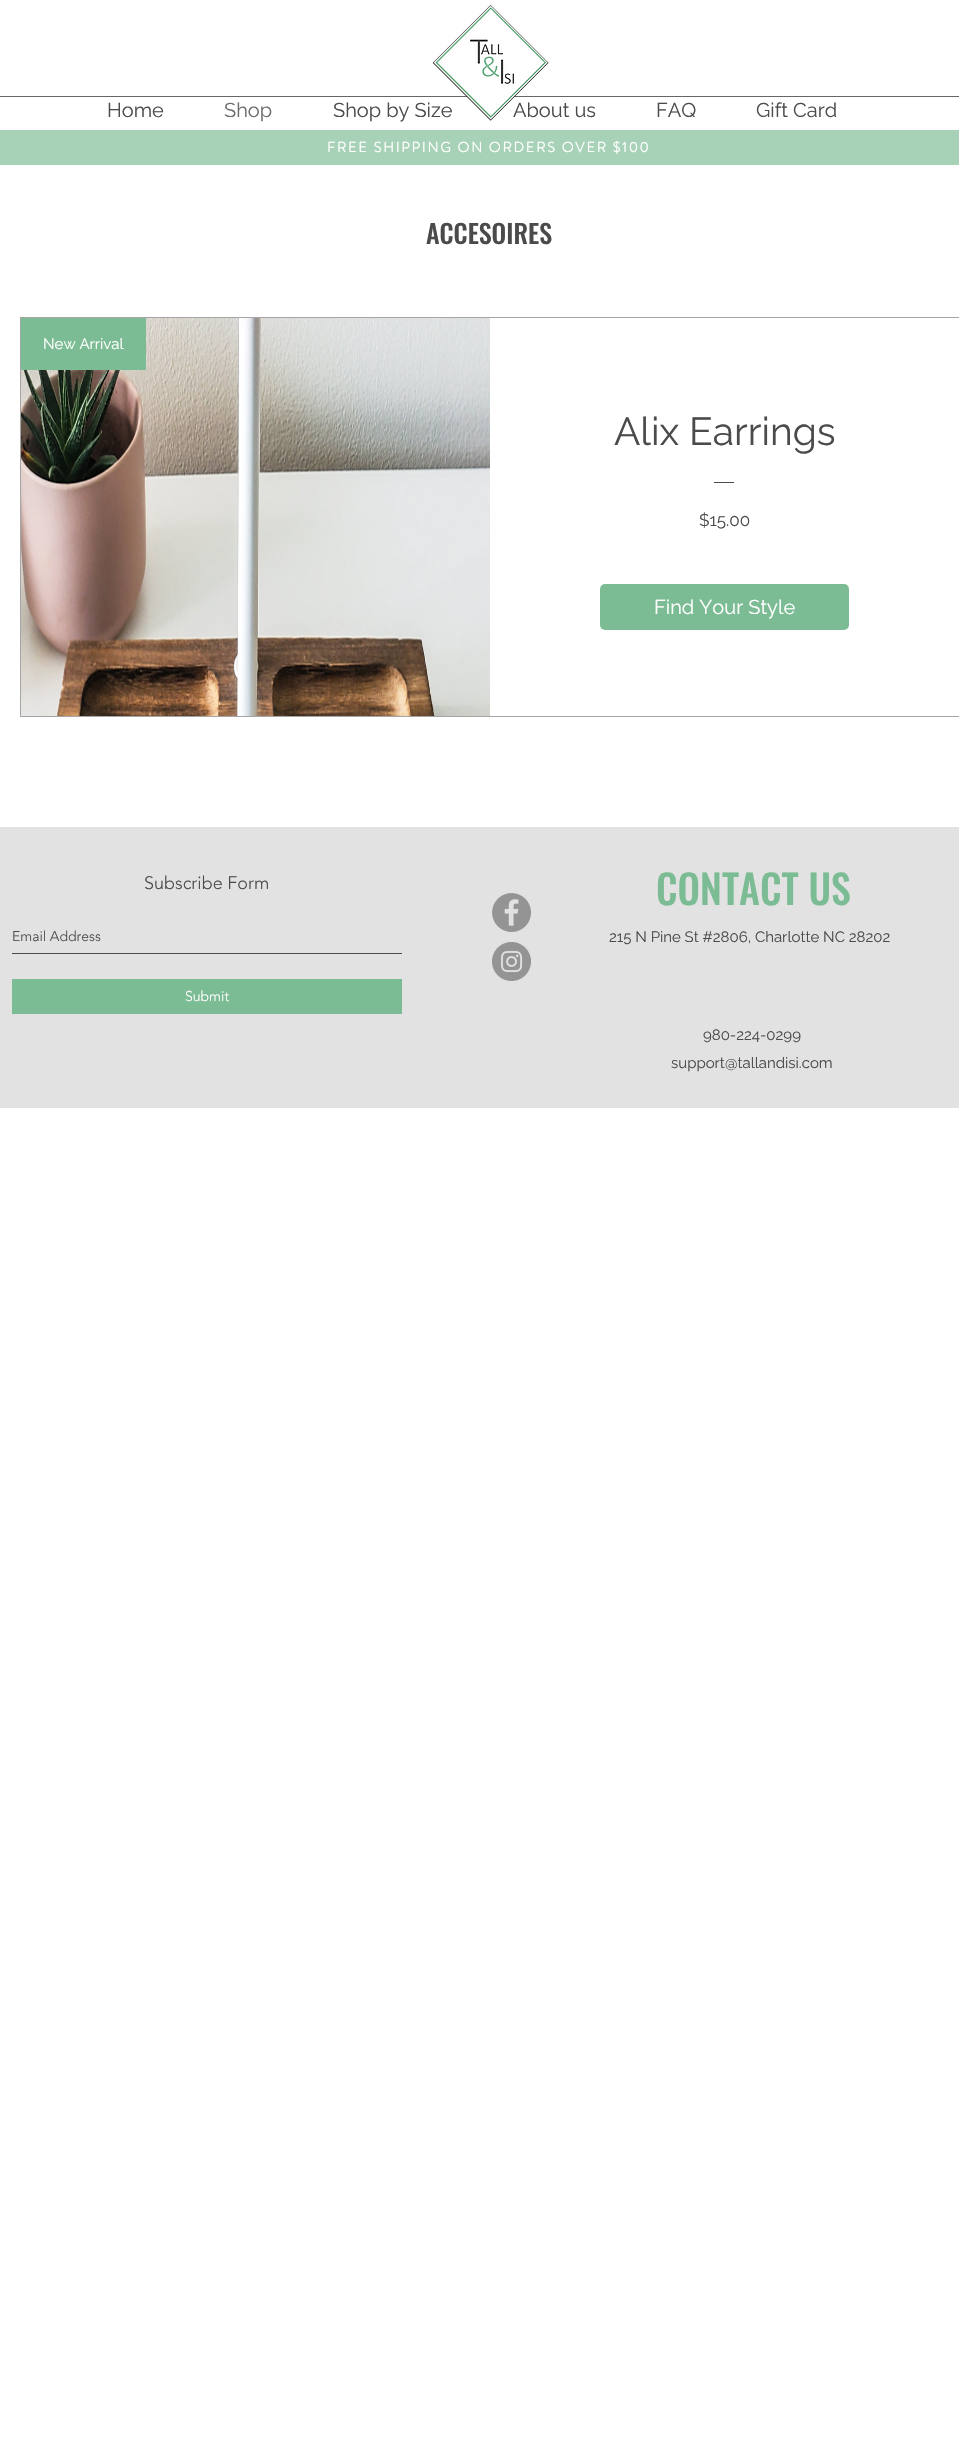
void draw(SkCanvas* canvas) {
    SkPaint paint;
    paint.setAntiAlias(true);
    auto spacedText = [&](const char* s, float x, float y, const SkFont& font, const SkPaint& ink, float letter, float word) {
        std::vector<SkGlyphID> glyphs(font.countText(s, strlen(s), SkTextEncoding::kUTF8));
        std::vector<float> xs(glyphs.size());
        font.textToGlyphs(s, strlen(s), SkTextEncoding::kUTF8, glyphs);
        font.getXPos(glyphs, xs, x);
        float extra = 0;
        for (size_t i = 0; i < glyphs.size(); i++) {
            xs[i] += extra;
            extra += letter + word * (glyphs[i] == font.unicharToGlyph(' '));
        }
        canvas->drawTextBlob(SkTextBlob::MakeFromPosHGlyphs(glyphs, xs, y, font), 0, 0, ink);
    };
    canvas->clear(0xFFFFFFFF);
    paint.setColor(0xFF666666);
    canvas->drawRect(SkRect::MakeXYWH(0, 96, 959, 1), paint);
    SkFont font1(fontMgr->matchFamilyStyle("Raleway", SkFontStyle::Normal()), 20);
    font1.setSubpixel(true);
    paint.setColor(0xFF4B4B4B);
    canvas->drawString("Shop by Size", 333, 117, font1, paint);
    canvas->drawString("About us", 513, 117, font1, paint);
    canvas->drawImageRect(SkImages::DeferredFromEncodedData(SkData::MakeFromFileName("img1.png")), SkRect::MakeXYWH(432, 5, 117, 116), SkSamplingOptions());
    canvas->drawString("Home", 107, 117, font1, paint);
    paint.setColor(0xFF6C6C6C);
    canvas->drawString("Shop", 224, 117, font1, paint);
    paint.setColor(0xFF4B4B4B);
    canvas->drawString("FAQ", 656, 117, font1, paint);
    canvas->drawString("Gift Card", 756, 117, font1, paint);
    paint.setColor(0xFFA8D2B8);
    canvas->drawRect(SkRect::MakeXYWH(0, 130, 959, 35), paint);
    SkFont font2(fontMgr->matchFamilyStyle("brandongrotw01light", SkFontStyle::Bold()), 14);
    font2.setSubpixel(true);
    paint.setColor(0xFFFFFFFF);
    spacedText("FREE SHIPPING ON ORDERS OVER $100", 327, 152, font2, paint, 1.95f, 0);
    SkFont font3(fontMgr->matchFamilyStyle("Oswald", SkFontStyle(500, SkFontStyle::kNormal_Width, SkFontStyle::kUpright_Slant)), 26);
    font3.setSubpixel(true);
    paint.setColor(0xFF4B4B4B);
    canvas->drawString("ACCESOIRES", 426, 244, font3, paint);
    paint.setStyle(SkPaint::kStroke_Style);
    paint.setStrokeWidth(1);
    paint.setColor(0xFFA5A5A5);
    canvas->drawRect(SkRect::MakeXYWH(20.5f, 317.5f, 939, 399), paint);
    canvas->drawImageRect(SkImages::DeferredFromEncodedData(SkData::MakeFromFileName("img2.png")), SkRect::MakeXYWH(21, 318, 469, 398), SkSamplingOptions());
    paint.setStyle(SkPaint::kFill_Style);
    paint.setColor(0xFF7CBC94);
    canvas->drawRect(SkRect::MakeXYWH(21, 318, 125, 52), paint);
    SkFont font4(fontMgr->matchFamilyStyle("Raleway", SkFontStyle::Normal()), 15);
    font4.setSubpixel(true);
    paint.setColor(0xFFFFFFFF);
    canvas->drawString("New Arrival", 43, 349, font4, paint);
    SkFont font5(fontMgr->matchFamilyStyle("Raleway", SkFontStyle::Normal()), 39);
    font5.setSubpixel(true);
    paint.setColor(0xFF4B4B4B);
    canvas->drawString("Alix Earrings", 614, 445, font5, paint);
    canvas->drawRect(SkRect::MakeXYWH(714, 482, 20, 1), paint);
    SkFont font6(fontMgr->matchFamilyStyle("Raleway", SkFontStyle::Normal()), 17);
    font6.setSubpixel(true);
    canvas->drawString("$15.00", 699, 526, font6, paint);
    paint.setColor(0xFF7CBC94);
    canvas->drawRoundRect(SkRect::MakeXYWH(600, 584, 249, 46), 5, 5, paint);
    paint.setColor(0xFFFFFFFF);
    canvas->drawString("Find Your Style", 654, 614, font1, paint);
    paint.setColor(0xFFE2E2E2);
    canvas->drawRect(SkRect::MakeXYWH(0, 827, 959, 281), paint);
    SkFont font7(fontMgr->matchFamilyStyle("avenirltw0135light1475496", SkFontStyle(300, SkFontStyle::kNormal_Width, SkFontStyle::kUpright_Slant)), 18);
    font7.setSubpixel(true);
    paint.setColor(0xFF4B4B4B);
    canvas->drawString("Subscribe Form", 144, 889, font7, paint);
    canvas->drawRect(SkRect::MakeXYWH(12, 953, 390, 1), paint);
    SkFont font8(fontMgr->matchFamilyStyle("avenirltw0135light1475496", SkFontStyle(300, SkFontStyle::kNormal_Width, SkFontStyle::kUpright_Slant)), 14);
    font8.setSubpixel(true);
    canvas->drawString("Email Address", 12, 941, font8, paint);
    paint.setColor(0xFF7CBC94);
    canvas->drawRect(SkRect::MakeXYWH(12, 979, 390, 35), paint);
    paint.setColor(0xFFFFFFFF);
    canvas->drawString("Submit", 185, 1001, font8, paint);
    canvas->drawImageRect(SkImages::DeferredFromEncodedData(SkData::MakeFromFileName("img3.png")), SkRect::MakeXYWH(492, 893, 39, 39), SkSamplingOptions());
    canvas->drawImageRect(SkImages::DeferredFromEncodedData(SkData::MakeFromFileName("img4.png")), SkRect::MakeXYWH(492, 942, 39, 39), SkSamplingOptions());
    SkFont font9(fontMgr->matchFamilyStyle("Oswald", SkFontStyle(500, SkFontStyle::kNormal_Width, SkFontStyle::kUpright_Slant)), 40);
    font9.setSubpixel(true);
    paint.setColor(0xFF7CBC94);
    canvas->drawString("CONTACT US", 656, 905, font9, paint);
    paint.setColor(0xFF4B4B4B);
    canvas->drawString("215 N Pine St #2806, Charlotte NC 28202", 609, 942, font4, paint);
    canvas->drawString("980-224-0299", 703, 1040, font4, paint);
    canvas->drawString("support@tallandisi.com", 671, 1068, font4, paint);
}
